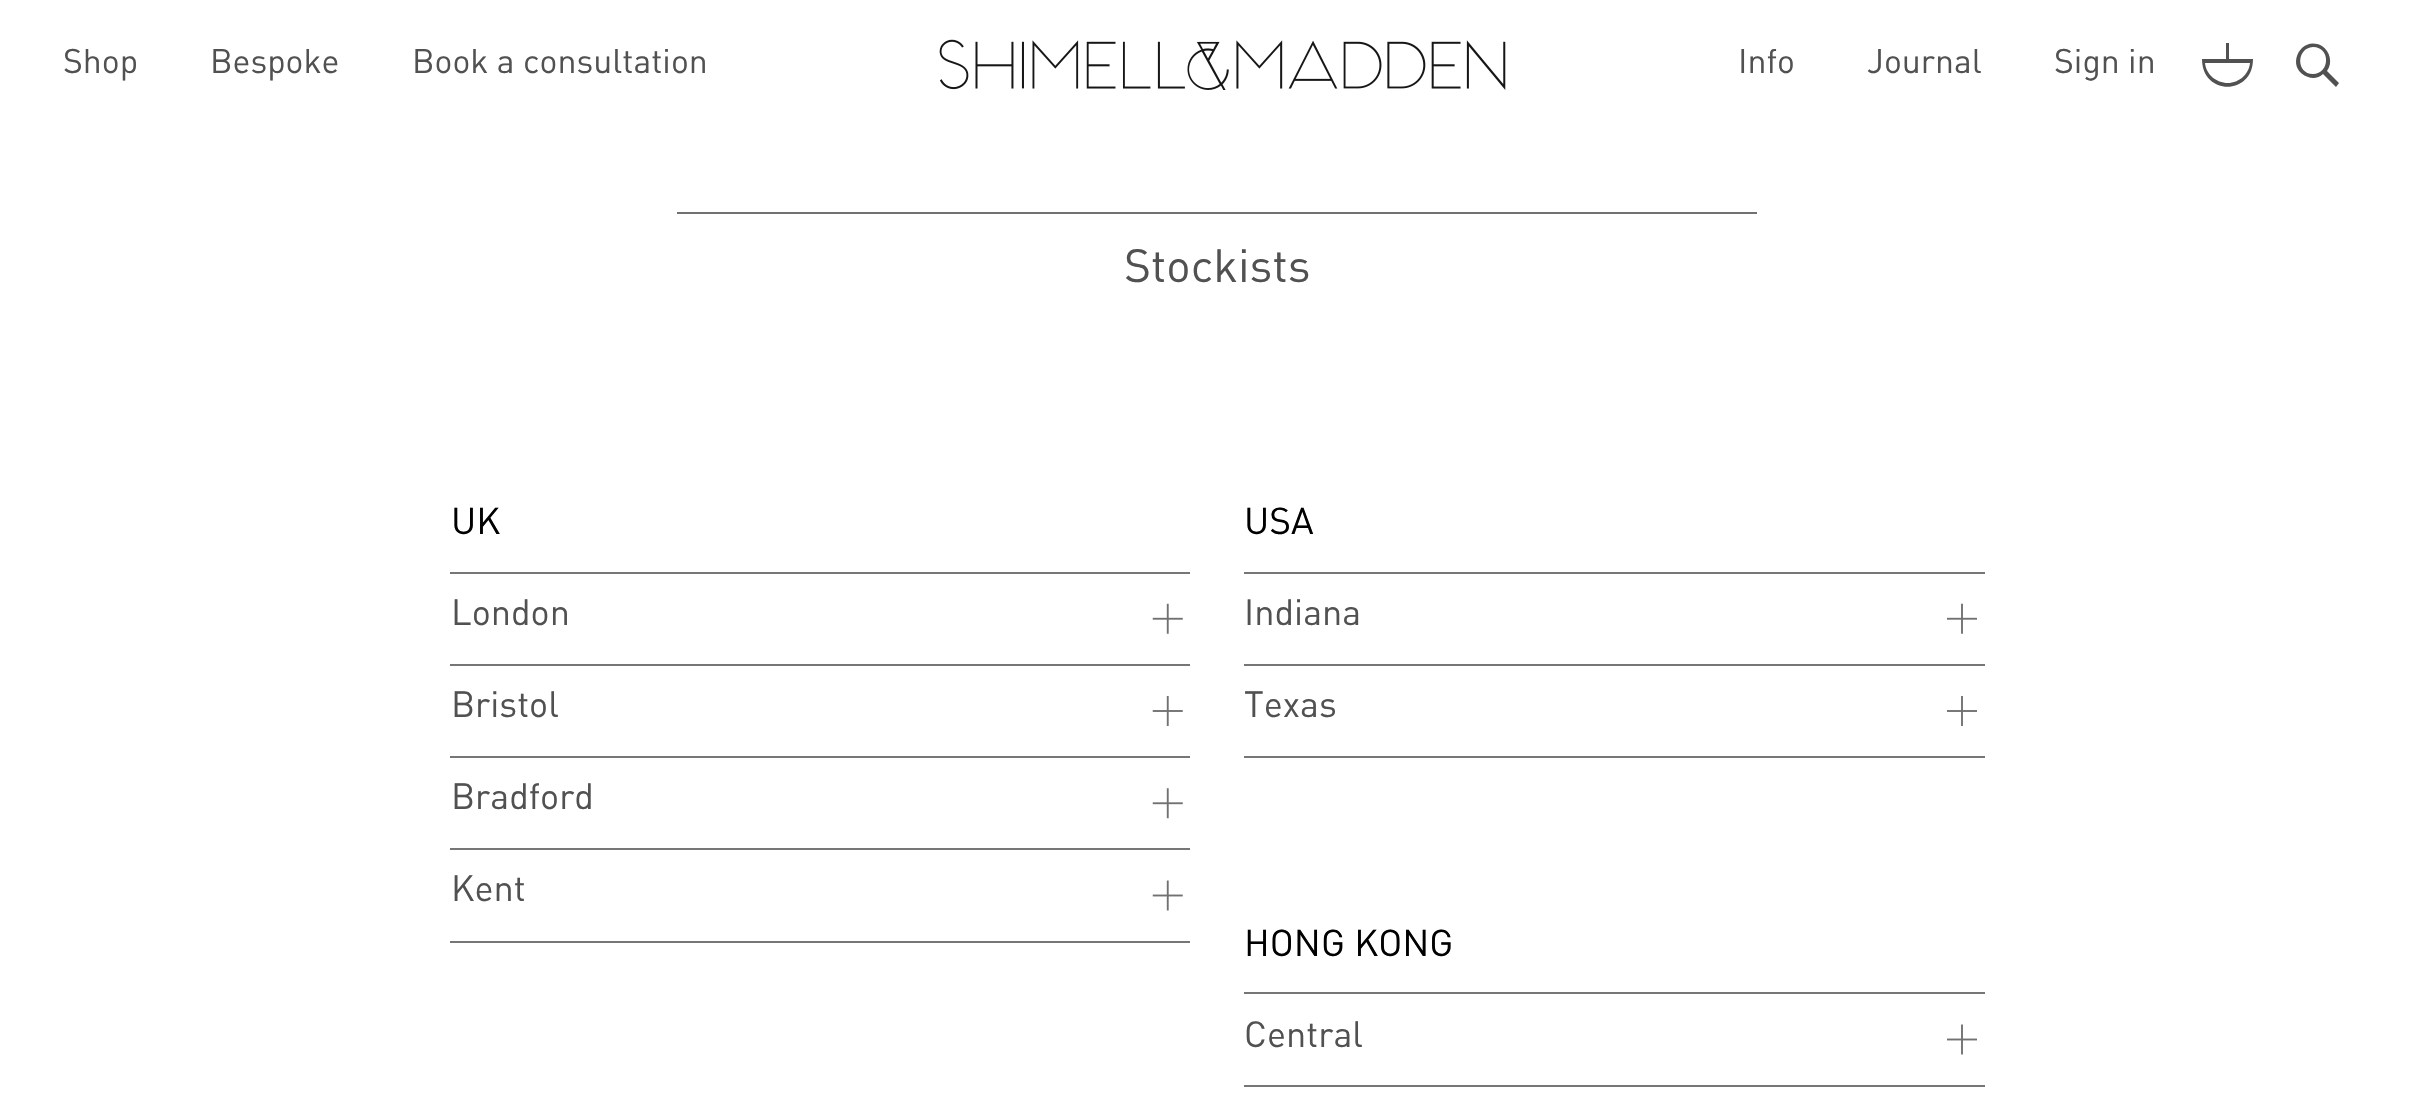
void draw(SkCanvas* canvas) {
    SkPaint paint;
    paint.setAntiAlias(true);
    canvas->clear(0xFFFFFFFF);
    SkFont font1(fontMgr->matchFamilyStyle("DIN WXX", SkFontStyle::Normal()), 33.75f);
    font1.setSubpixel(true);
    paint.setColor(0xFF515151);
    canvas->drawString("Shop", 63, 73, font1, paint);
    canvas->drawString("Bespoke", 210, 73, font1, paint);
    canvas->drawString("Book a consultation", 412, 73, font1, paint);
    canvas->drawImageRect(SkImages::DeferredFromEncodedData(SkData::MakeFromFileName("img1.png")), SkRect::MakeXYWH(939, 39, 567, 51), SkSamplingOptions());
    canvas->drawString("Info", 1738, 73, font1, paint);
    canvas->drawString("Journal", 1867, 73, font1, paint);
    canvas->drawString("Sign in", 2054, 73, font1, paint);
    canvas->drawPath(SkPathBuilder().moveTo(2229, 59).lineTo(2229, 43).lineTo(2226, 43).lineTo(2226, 59).lineTo(2202, 59).cubicTo(2202, 96, 2253, 96, 2253, 59).close().moveTo(2228, 83).cubicTo(2216, 83, 2206, 74, 2205, 63).lineTo(2250, 63).cubicTo(2249, 74, 2239, 83, 2228, 83).close().detach(), paint);
    canvas->drawPath(SkPathBuilder().moveTo(2327, 71).cubicTo(2333, 63, 2330, 51, 2322, 46).cubicTo(2300, 34, 2284, 69, 2308, 77).cubicTo(2313, 79, 2319, 78, 2323, 74).lineTo(2336, 87).lineTo(2339, 83).close().moveTo(2313, 74).cubicTo(2296, 74, 2296, 48, 2313, 47).cubicTo(2331, 47, 2330, 74, 2313, 74).close().detach(), paint);
    paint.setColor(0xFF727070);
    canvas->drawRect(SkRect::MakeXYWH(677, 212, 1080, 2), paint);
    SkFont font2(fontMgr->matchFamilyStyle("DIN WXX", SkFontStyle::Normal()), 46);
    font2.setSubpixel(true);
    paint.setColor(0xFF515151);
    canvas->drawString("Stockists", 1124, 282, font2, paint);
    paint.setColor(0xFF767676);
    canvas->drawRect(SkRect::MakeXYWH(450, 572, 740, 2), paint);
    SkFont font3(fontMgr->matchFamilyStyle("DIN WXX", SkFontStyle::Normal()), 37);
    font3.setSubpixel(true);
    paint.setColor(0xFF000000);
    canvas->drawString("UK", 451, 534, font3, paint);
    paint.setColor(0xFF767676);
    canvas->drawRect(SkRect::MakeXYWH(450, 664, 740, 2), paint);
    SkFont font4(fontMgr->matchFamilyStyle("DIN WXX", SkFontStyle::Normal()), 36);
    font4.setSubpixel(true);
    paint.setColor(0xFF515151);
    canvas->drawString("London", 451, 625, font4, paint);
    canvas->drawImageRect(SkImages::DeferredFromEncodedData(SkData::MakeFromFileName("img2.png")), SkRect::MakeXYWH(1152, 603, 31, 31), SkSamplingOptions());
    paint.setColor(0xFF767676);
    canvas->drawRect(SkRect::MakeXYWH(450, 756, 740, 2), paint);
    paint.setColor(0xFF515151);
    canvas->drawString("Bristol", 451, 717, font4, paint);
    canvas->drawImageRect(SkImages::DeferredFromEncodedData(SkData::MakeFromFileName("img3.png")), SkRect::MakeXYWH(1152, 696, 31, 30), SkSamplingOptions());
    paint.setColor(0xFF767676);
    canvas->drawRect(SkRect::MakeXYWH(450, 848, 740, 2), paint);
    paint.setColor(0xFF515151);
    canvas->drawString("Bradford", 451, 809, font4, paint);
    canvas->drawImageRect(SkImages::DeferredFromEncodedData(SkData::MakeFromFileName("img4.png")), SkRect::MakeXYWH(1152, 788, 31, 31), SkSamplingOptions());
    paint.setColor(0xFF767676);
    canvas->drawRect(SkRect::MakeXYWH(450, 941, 740, 2), paint);
    paint.setColor(0xFF515151);
    canvas->drawString("Kent", 451, 901, font4, paint);
    canvas->drawImageRect(SkImages::DeferredFromEncodedData(SkData::MakeFromFileName("img5.png")), SkRect::MakeXYWH(1152, 880, 31, 31), SkSamplingOptions());
    paint.setColor(0xFF767676);
    canvas->drawRect(SkRect::MakeXYWH(1244, 572, 741, 2), paint);
    paint.setColor(0xFF000000);
    canvas->drawString("USA", 1244, 534, font3, paint);
    paint.setColor(0xFF767676);
    canvas->drawRect(SkRect::MakeXYWH(1244, 664, 741, 2), paint);
    paint.setColor(0xFF515151);
    canvas->drawString("Indiana", 1244, 625, font4, paint);
    canvas->drawImageRect(SkImages::DeferredFromEncodedData(SkData::MakeFromFileName("img6.png")), SkRect::MakeXYWH(1947, 603, 30, 31), SkSamplingOptions());
    paint.setColor(0xFF767676);
    canvas->drawRect(SkRect::MakeXYWH(1244, 756, 741, 2), paint);
    paint.setColor(0xFF515151);
    canvas->drawString("Texas", 1244, 717, font4, paint);
    canvas->drawImageRect(SkImages::DeferredFromEncodedData(SkData::MakeFromFileName("img7.png")), SkRect::MakeXYWH(1947, 696, 30, 30), SkSamplingOptions());
    paint.setColor(0xFF767676);
    canvas->drawRect(SkRect::MakeXYWH(1244, 992, 741, 2), paint);
    paint.setColor(0xFF000000);
    canvas->drawString("HONG KONG", 1244, 956, font3, paint);
    paint.setColor(0xFF767676);
    canvas->drawRect(SkRect::MakeXYWH(1244, 1085, 741, 2), paint);
    paint.setColor(0xFF515151);
    canvas->drawString("Central", 1244, 1047, font4, paint);
    canvas->drawImageRect(SkImages::DeferredFromEncodedData(SkData::MakeFromFileName("img8.png")), SkRect::MakeXYWH(1947, 1024, 30, 31), SkSamplingOptions());
}
